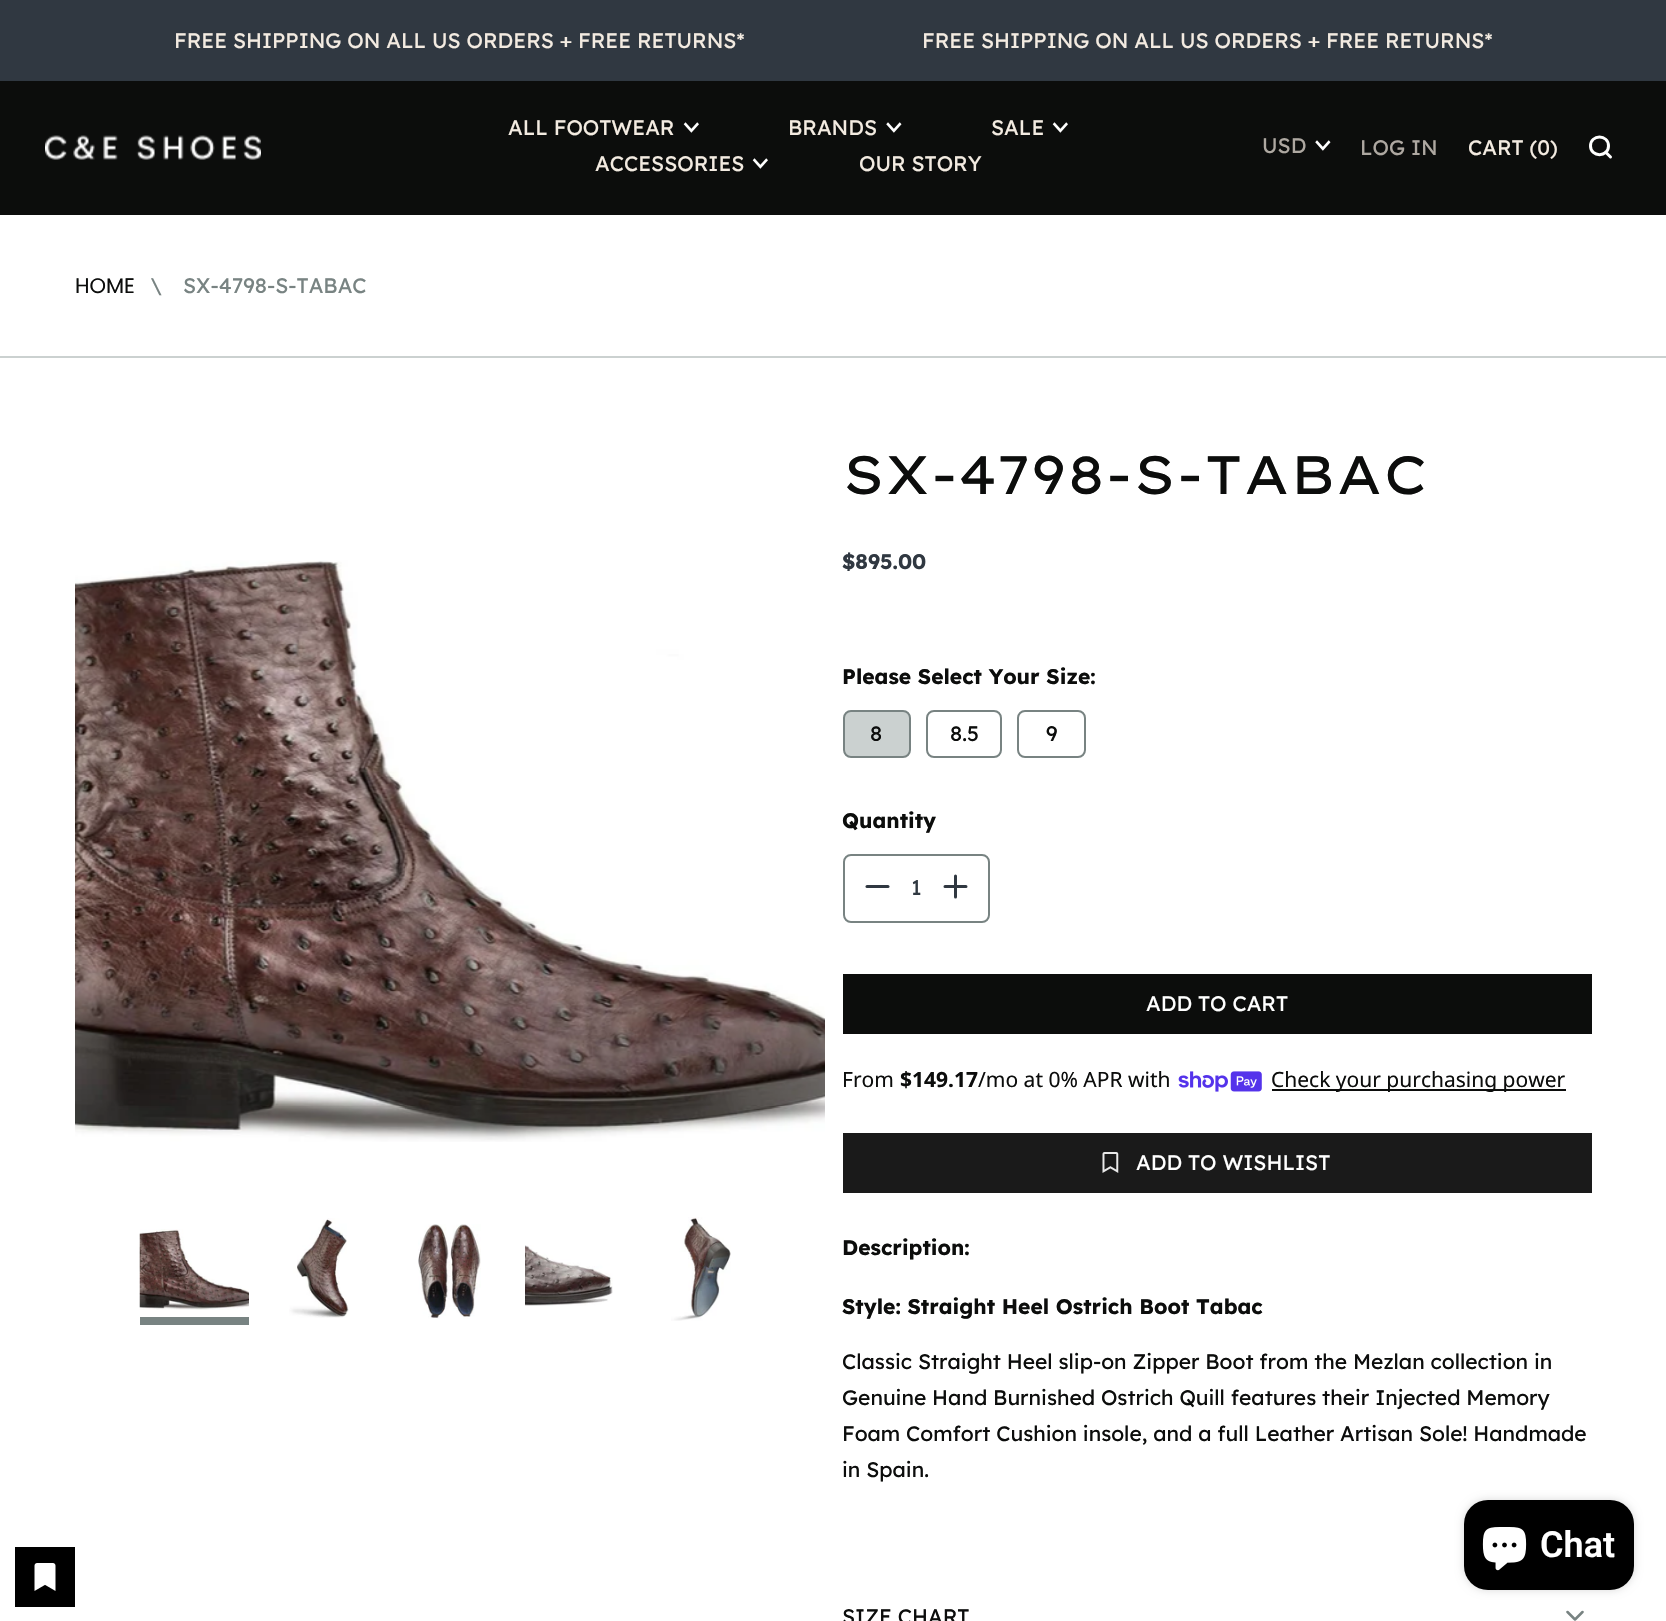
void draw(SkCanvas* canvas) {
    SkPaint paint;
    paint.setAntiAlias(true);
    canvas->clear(0xFFFFFFFF);
    paint.setColor(0xFF303841);
    canvas->drawRect(SkRect::MakeXYWH(0, 0, 1666, 81), paint);
    SkFont font1(fontMgr->matchFamilyStyle("Lexend", SkFontStyle::Normal()), 21);
    font1.setSubpixel(true);
    paint.setColor(0xFFF3EBE1);
    canvas->drawString("FREE SHIPPING ON ALL US ORDERS + FREE RETURNS*", 174, 48, font1, paint);
    canvas->drawString("FREE SHIPPING ON ALL US ORDERS + FREE RETURNS*", 922, 48, font1, paint);
    paint.setColor(0xFF0C0D0C);
    canvas->drawRect(SkRect::MakeXYWH(0, 81, 1666, 134), paint);
    canvas->drawImageRect(SkImages::DeferredFromEncodedData(SkData::MakeFromFileName("img1.png")), SkRect::MakeXYWH(45, 135, 216, 25), SkSamplingOptions());
    paint.setColor(0xFFF3EBE1);
    canvas->drawString("ALL FOOTWEAR", 508, 135, font1, paint);
    canvas->drawImageRect(SkImages::DeferredFromEncodedData(SkData::MakeFromFileName("img2.png")), SkRect::MakeXYWH(683, 122, 16, 11), SkSamplingOptions());
    canvas->drawString("BRANDS", 788, 135, font1, paint);
    canvas->drawImageRect(SkImages::DeferredFromEncodedData(SkData::MakeFromFileName("img3.png")), SkRect::MakeXYWH(886, 122, 16, 11), SkSamplingOptions());
    canvas->drawString("SALE", 991, 135, font1, paint);
    canvas->drawImageRect(SkImages::DeferredFromEncodedData(SkData::MakeFromFileName("img2.png")), SkRect::MakeXYWH(1052, 122, 16, 11), SkSamplingOptions());
    canvas->drawString("ACCESSORIES", 595, 171, font1, paint);
    canvas->drawImageRect(SkImages::DeferredFromEncodedData(SkData::MakeFromFileName("img2.png")), SkRect::MakeXYWH(752, 158, 16, 11), SkSamplingOptions());
    canvas->drawString("OUR STORY", 859, 171, font1, paint);
    paint.setColor(0xFFAEA8A1);
    canvas->drawString("USD", 1262, 153, font1, paint);
    canvas->drawImageRect(SkImages::DeferredFromEncodedData(SkData::MakeFromFileName("img3.png")), SkRect::MakeXYWH(1315, 140, 16, 11), SkSamplingOptions());
    canvas->drawString("LOG IN", 1360, 155, font1, paint);
    paint.setColor(0xFFF3EBE1);
    canvas->drawString("CART (0)", 1468, 155, font1, paint);
    paint.setStyle(SkPaint::kStroke_Style);
    paint.setStrokeWidth(3);
    paint.setStrokeCap(SkPaint::kRound_Cap);
    paint.setStrokeJoin(SkPaint::kRound_Join);
    paint.setColor(0xFFFFFFFF);
    canvas->drawPath(SkPathBuilder().moveTo(1610.5f, 157).lineTo(1605.5f, 152).moveTo(1608.5f, 146).cubicTo(1608.5f, 157.5f, 1590.5f, 157.5f, 1590.5f, 146).cubicTo(1590.5f, 134, 1608.5f, 134, 1608.5f, 146).close().detach(), paint);
    paint.setStyle(SkPaint::kFill_Style);
    paint.setColor(0xFFCBD1D0);
    canvas->drawRect(SkRect::MakeXYWH(0, 356, 1666, 2), paint);
    SkFont font2(fontMgr->matchFamilyStyle("Poppins", SkFontStyle::Normal()), 21);
    font2.setSubpixel(true);
    paint.setColor(0xFF0C0D0C);
    canvas->drawString("HOME", 75, 293, font2, paint);
    paint.setColor(0xFF788382);
    canvas->drawString("\\", 150, 293, font1, paint);
    canvas->drawString("SX-4798-S-TABAC", 183, 293, font1, paint);
    canvas->drawImageRect(SkImages::DeferredFromEncodedData(SkData::MakeFromFileName("img4.png")), SkRect::MakeXYWH(75, 560, 750, 582), SkSamplingOptions());
    canvas->drawRect(SkRect::MakeXYWH(140, 1317, 109, 8), paint);
    canvas->drawImageRect(SkImages::DeferredFromEncodedData(SkData::MakeFromFileName("img5.png")), SkRect::MakeXYWH(139, 1229, 110, 81), SkSamplingOptions());
    canvas->drawImageRect(SkImages::DeferredFromEncodedData(SkData::MakeFromFileName("img6.png")), SkRect::MakeXYWH(289, 1218, 60, 100), SkSamplingOptions());
    canvas->drawImageRect(SkImages::DeferredFromEncodedData(SkData::MakeFromFileName("img7.png")), SkRect::MakeXYWH(418, 1224, 63, 95), SkSamplingOptions());
    canvas->drawImageRect(SkImages::DeferredFromEncodedData(SkData::MakeFromFileName("img8.png")), SkRect::MakeXYWH(525, 1245, 88, 61), SkSamplingOptions());
    canvas->drawImageRect(SkImages::DeferredFromEncodedData(SkData::MakeFromFileName("img9.png")), SkRect::MakeXYWH(671, 1217, 60, 104), SkSamplingOptions());
    SkFont font3(fontMgr->matchFamilyStyle("Lexend Giga", SkFontStyle::Normal()), 54);
    font3.setSubpixel(true);
    paint.setColor(0xFF0C0D0C);
    canvas->drawString("SX-4798-S-TABAC", 842, 494, font3, paint);
    SkFont font4(fontMgr->matchFamilyStyle("Lexend", SkFontStyle::Bold()), 21);
    font4.setSubpixel(true);
    paint.setColor(0xFF303841);
    canvas->drawString("$895.00", 842, 569, font4, paint);
    paint.setColor(0xFF0C0D0C);
    canvas->drawString("Please Select Your Size:", 842, 684, font4, paint);
    paint.setColor(0xFFCBD1D0);
    canvas->drawRoundRect(SkRect::MakeXYWH(844, 711, 66, 46), 7, 7, paint);
    paint.setStyle(SkPaint::kStroke_Style);
    paint.setStrokeWidth(2);
    paint.setStrokeCap(SkPaint::kButt_Cap);
    paint.setStrokeJoin(SkPaint::kMiter_Join);
    paint.setColor(0xFF788382);
    canvas->drawRoundRect(SkRect::MakeXYWH(844, 711, 66, 46), 7, 7, paint);
    paint.setStyle(SkPaint::kFill_Style);
    paint.setColor(0xFF0C0D0C);
    canvas->drawString("8", 870, 741, font1, paint);
    paint.setStyle(SkPaint::kStroke_Style);
    paint.setColor(0xFF788382);
    canvas->drawRoundRect(SkRect::MakeXYWH(927, 711, 74, 46), 7, 7, paint);
    paint.setStyle(SkPaint::kFill_Style);
    paint.setColor(0xFF0C0D0C);
    canvas->drawString("8.5", 950, 741, font1, paint);
    paint.setStyle(SkPaint::kStroke_Style);
    paint.setColor(0xFF788382);
    canvas->drawRoundRect(SkRect::MakeXYWH(1018, 711, 67, 46), 7, 7, paint);
    paint.setStyle(SkPaint::kFill_Style);
    paint.setColor(0xFF0C0D0C);
    canvas->drawString("9", 1046, 741, font1, paint);
    canvas->drawString("Quantity", 842, 828, font4, paint);
    paint.setStyle(SkPaint::kStroke_Style);
    paint.setColor(0xFF788382);
    canvas->drawRoundRect(SkRect::MakeXYWH(844, 855, 145, 67), 7, 7, paint);
    paint.setStrokeWidth(3);
    paint.setStrokeCap(SkPaint::kRound_Cap);
    paint.setStrokeJoin(SkPaint::kRound_Join);
    paint.setColor(0xFF303841);
    canvas->drawPath(SkPathBuilder().moveTo(867, 886.5f).lineTo(888, 886.5f).detach(), paint);
    paint.setStyle(SkPaint::kFill_Style);
    canvas->drawString("1", 911, 895, font1, paint);
    paint.setStyle(SkPaint::kStroke_Style);
    canvas->drawPath(SkPathBuilder().moveTo(955.5f, 897).lineTo(955.5f, 876).moveTo(966, 886.5f).lineTo(945, 886.5f).detach(), paint);
    paint.setStyle(SkPaint::kFill_Style);
    paint.setColor(0xFF0C0D0C);
    canvas->drawRect(SkRect::MakeXYWH(843, 974, 749, 60), paint);
    paint.setColor(0xFFFFFFFF);
    canvas->drawString("ADD TO CART", 1146, 1011, font1, paint);
    SkFont font5(fontMgr->matchFamilyStyle("Noto Sans", SkFontStyle::Normal()), 21);
    font5.setSubpixel(true);
    paint.setColor(0xFF0C0D0C);
    canvas->drawString("From", 842, 1087, font5, paint);
    SkFont font6(fontMgr->matchFamilyStyle("Noto Sans", SkFontStyle::Bold()), 21);
    font6.setSubpixel(true);
    canvas->drawString("$149.17", 900, 1087, font6, paint);
    canvas->drawString("/mo at 0% APR with", 978, 1087, font5, paint);
    canvas->drawImageRect(SkImages::DeferredFromEncodedData(SkData::MakeFromFileName("img10.png")), SkRect::MakeXYWH(1178, 1071, 84, 21), SkSamplingOptions());
    canvas->drawRect(SkRect::MakeXYWH(1272, 1089, 294, 2), paint);
    canvas->drawString("Check your purchasing power", 1271, 1087, font5, paint);
    paint.setColor(0xFF1A1A1A);
    canvas->drawRect(SkRect::MakeXYWH(843, 1133, 749, 60), paint);
    canvas->drawImageRect(SkImages::DeferredFromEncodedData(SkData::MakeFromFileName("img11.png")), SkRect::MakeXYWH(1102, 1152, 17, 21), SkSamplingOptions());
    paint.setColor(0xFFFFFFFF);
    canvas->drawString("ADD TO WISHLIST", 1136, 1170, font1, paint);
    paint.setColor(0xFF0C0D0C);
    canvas->drawString("Description:", 842, 1255, font4, paint);
    canvas->drawString("Style: Straight Heel Ostrich Boot Tabac", 842, 1314, font4, paint);
    canvas->drawString("Classic Straight Heel slip-on Zipper Boot from the Mezlan collection in", 842, 1369, font1, paint);
    canvas->drawString("Genuine Hand Burnished Ostrich Quill features their Injected Memory", 842, 1405, font1, paint);
    canvas->drawString("Foam Comfort Cushion insole, and a full Leather Artisan Sole! Handmade", 842, 1441, font1, paint);
    canvas->drawString("in Spain.", 842, 1477, font1, paint);
    canvas->drawString("SIZE CHART", 842, 1624, font1, paint);
    paint.setStyle(SkPaint::kStroke_Style);
    paint.setStrokeWidth(2.5f);
    paint.setColor(0xFF788382);
    canvas->drawPath(SkPathBuilder().moveTo(1567.5f, 1612).lineTo(1575, 1619.5f).lineTo(1582.5f, 1612).detach(), paint);
    paint.setStyle(SkPaint::kFill_Style);
    paint.setColor(0x26000000);
    paint.setMaskFilter(SkMaskFilter::MakeBlur(kNormal_SkBlurStyle, 4));
    canvas->drawRoundRect(SkRect::MakeXYWH(1464, 1500, 170, 90), 24, 24, paint);
    paint.setMaskFilter(nullptr);
    paint.setColor(0xFF000000);
    canvas->drawRoundRect(SkRect::MakeXYWH(1464, 1500, 170, 90), 24, 24, paint);
    canvas->drawImageRect(SkImages::DeferredFromEncodedData(SkData::MakeFromFileName("img12.png")), SkRect::MakeXYWH(1482, 1527, 45, 44), SkSamplingOptions());
    SkFont font7(fontMgr->matchFamilyStyle("Roboto", SkFontStyle(600, SkFontStyle::kNormal_Width, SkFontStyle::kUpright_Slant)), 36);
    font7.setSubpixel(true);
    paint.setColor(0xFFFFFFFF);
    canvas->drawString("Chat", 1540, 1557, font7, paint);
    paint.setColor(0xFF000000);
    canvas->drawRect(SkRect::MakeXYWH(15, 1547, 60, 60), paint);
    canvas->drawImageRect(SkImages::DeferredFromEncodedData(SkData::MakeFromFileName("img13.png")), SkRect::MakeXYWH(34, 1563, 22, 28), SkSamplingOptions());
}
